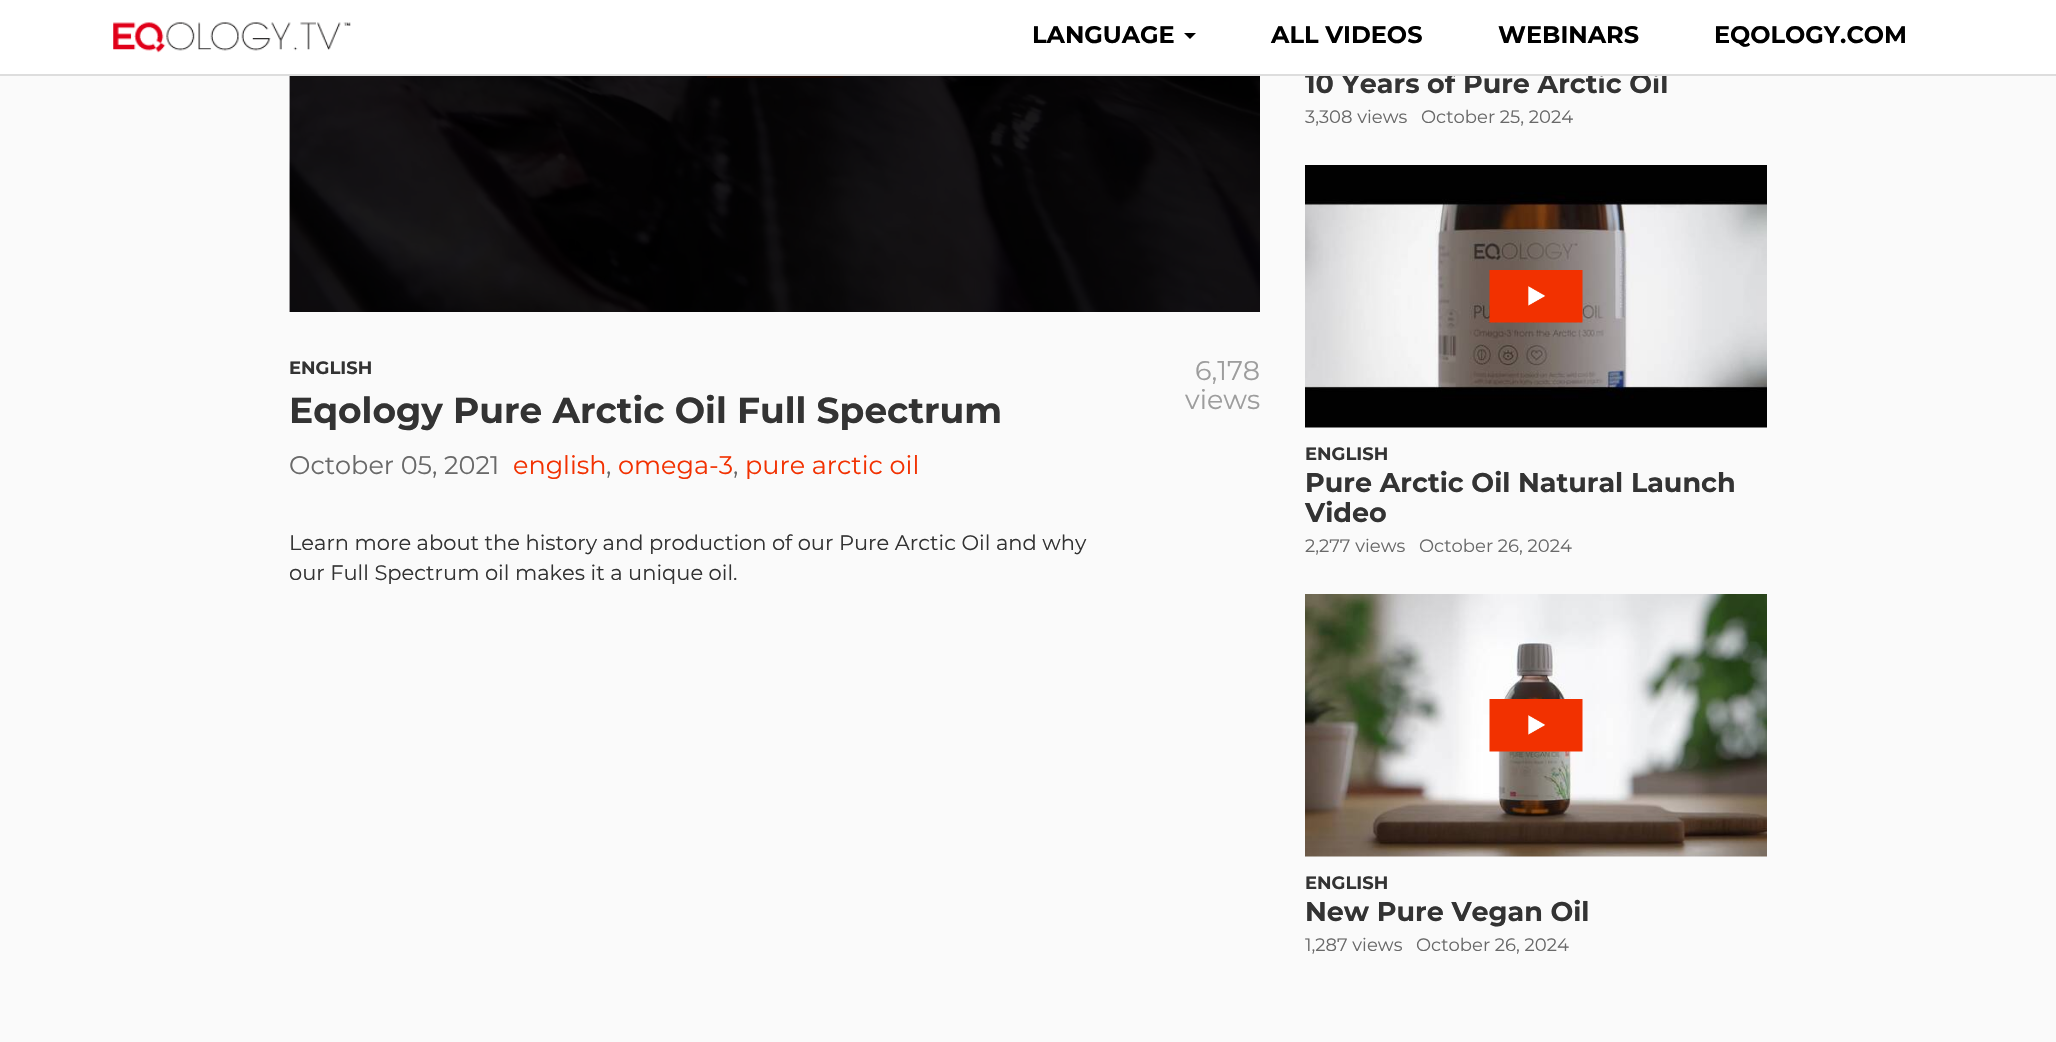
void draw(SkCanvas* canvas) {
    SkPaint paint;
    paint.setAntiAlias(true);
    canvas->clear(0xFFFAFAFA);
    SkFont font1(fontMgr->matchFamilyStyle("Montserrat", SkFontStyle::Bold()), 27);
    font1.setSubpixel(true);
    paint.setColor(0xFF333333);
    canvas->drawString("10 Years of Pure Arctic Oil", 1305, 93, font1, paint);
    paint.setColor(0xFFFFFFFF);
    canvas->drawRect(SkRect::MakeXYWH(0, 0, 2056, 74), paint);
    paint.setColor(0xFFDDDDDD);
    canvas->drawRect(SkRect::MakeXYWH(0, 74, 2056, 2), paint);
    canvas->drawImageRect(SkImages::DeferredFromEncodedData(SkData::MakeFromFileName("img1.png")), SkRect::MakeXYWH(113, 22, 238, 31), SkSamplingOptions());
    SkFont font2(fontMgr->matchFamilyStyle("Montserrat", SkFontStyle::Bold()), 24);
    font2.setSubpixel(true);
    paint.setColor(0xFF000000);
    canvas->drawString("LANGUAGE", 1032, 43, font2, paint);
    canvas->drawPath(SkPathBuilder().moveTo(1184, 33).lineTo(1196, 33).lineTo(1190, 39).close().detach(), paint);
    canvas->drawString("ALL VIDEOS", 1271, 43, font2, paint);
    canvas->drawString("WEBINARS", 1498, 43, font2, paint);
    canvas->drawString("EQOLOGY.COM", 1714, 43, font2, paint);
    canvas->drawImageRect(SkImages::DeferredFromEncodedData(SkData::MakeFromFileName("img2.png")), SkRect::MakeXYWH(289, 76, 971, 236), SkSamplingOptions());
    SkFont font3(fontMgr->matchFamilyStyle("Montserrat", SkFontStyle::Bold()), 18);
    font3.setSubpixel(true);
    paint.setColor(0xFF333333);
    canvas->drawString("ENGLISH", 289, 374, font3, paint);
    SkFont font4(fontMgr->matchFamilyStyle("Montserrat", SkFontStyle::Bold()), 36);
    font4.setSubpixel(true);
    canvas->drawString("Eqology Pure Arctic Oil Full Spectrum", 289, 423, font4, paint);
    SkFont font5(fontMgr->matchFamilyStyle("Montserrat", SkFontStyle::Normal()), 27);
    font5.setSubpixel(true);
    paint.setColor(0xFF9D9D9D);
    canvas->drawString("6,178", 1195, 380, font5, paint);
    canvas->drawString("views", 1185, 409, font5, paint);
    SkFont font6(fontMgr->matchFamilyStyle("Montserrat", SkFontStyle::Normal()), 25.5f);
    font6.setSubpixel(true);
    paint.setColor(0xFF696969);
    canvas->drawString("October 05, 2021", 289, 474, font6, paint);
    paint.setColor(0xFFF23101);
    canvas->drawString("english", 513, 474, font6, paint);
    paint.setColor(0xFF696969);
    canvas->drawString(",", 606, 474, font6, paint);
    paint.setColor(0xFFF23101);
    canvas->drawString("omega-3", 618, 474, font6, paint);
    paint.setColor(0xFF696969);
    canvas->drawString(",", 733, 474, font6, paint);
    paint.setColor(0xFFF23101);
    canvas->drawString("pure arctic oil", 745, 474, font6, paint);
    SkFont font7(fontMgr->matchFamilyStyle("Montserrat", SkFontStyle::Normal()), 21);
    font7.setSubpixel(true);
    paint.setColor(0xFF333333);
    canvas->drawString("Learn more about the history and production of our Pure Arctic Oil and why", 289, 550, font7, paint);
    canvas->drawString("our Full Spectrum oil makes it a unique oil.", 289, 580, font7, paint);
    SkFont font8(fontMgr->matchFamilyStyle("Montserrat", SkFontStyle::Normal()), 18);
    font8.setSubpixel(true);
    paint.setColor(0xFF696969);
    canvas->drawString("3,308 views", 1305, 123, font8, paint);
    canvas->drawString("October 25, 2024", 1421, 123, font8, paint);
    canvas->drawImageRect(SkImages::DeferredFromEncodedData(SkData::MakeFromFileName("img3.png")), SkRect::MakeXYWH(1305, 165, 462, 263), SkSamplingOptions());
    canvas->drawImageRect(SkImages::DeferredFromEncodedData(SkData::MakeFromFileName("img4.png")), SkRect::MakeXYWH(1489, 270, 94, 53), SkSamplingOptions());
    paint.setColor(0xFF333333);
    canvas->drawString("ENGLISH", 1305, 460, font3, paint);
    canvas->drawString("Pure Arctic Oil Natural Launch", 1305, 492, font1, paint);
    canvas->drawString("Video", 1305, 522, font1, paint);
    paint.setColor(0xFF696969);
    canvas->drawString("2,277 views", 1305, 552, font8, paint);
    canvas->drawString("October 26, 2024", 1419, 552, font8, paint);
    canvas->drawImageRect(SkImages::DeferredFromEncodedData(SkData::MakeFromFileName("img5.png")), SkRect::MakeXYWH(1305, 594, 462, 263), SkSamplingOptions());
    canvas->drawImageRect(SkImages::DeferredFromEncodedData(SkData::MakeFromFileName("img6.png")), SkRect::MakeXYWH(1489, 699, 94, 53), SkSamplingOptions());
    paint.setColor(0xFF333333);
    canvas->drawString("ENGLISH", 1305, 889, font3, paint);
    canvas->drawString("New Pure Vegan Oil", 1305, 921, font1, paint);
    paint.setColor(0xFF696969);
    canvas->drawString("1,287 views", 1305, 951, font8, paint);
    canvas->drawString("October 26, 2024", 1416, 951, font8, paint);
}
